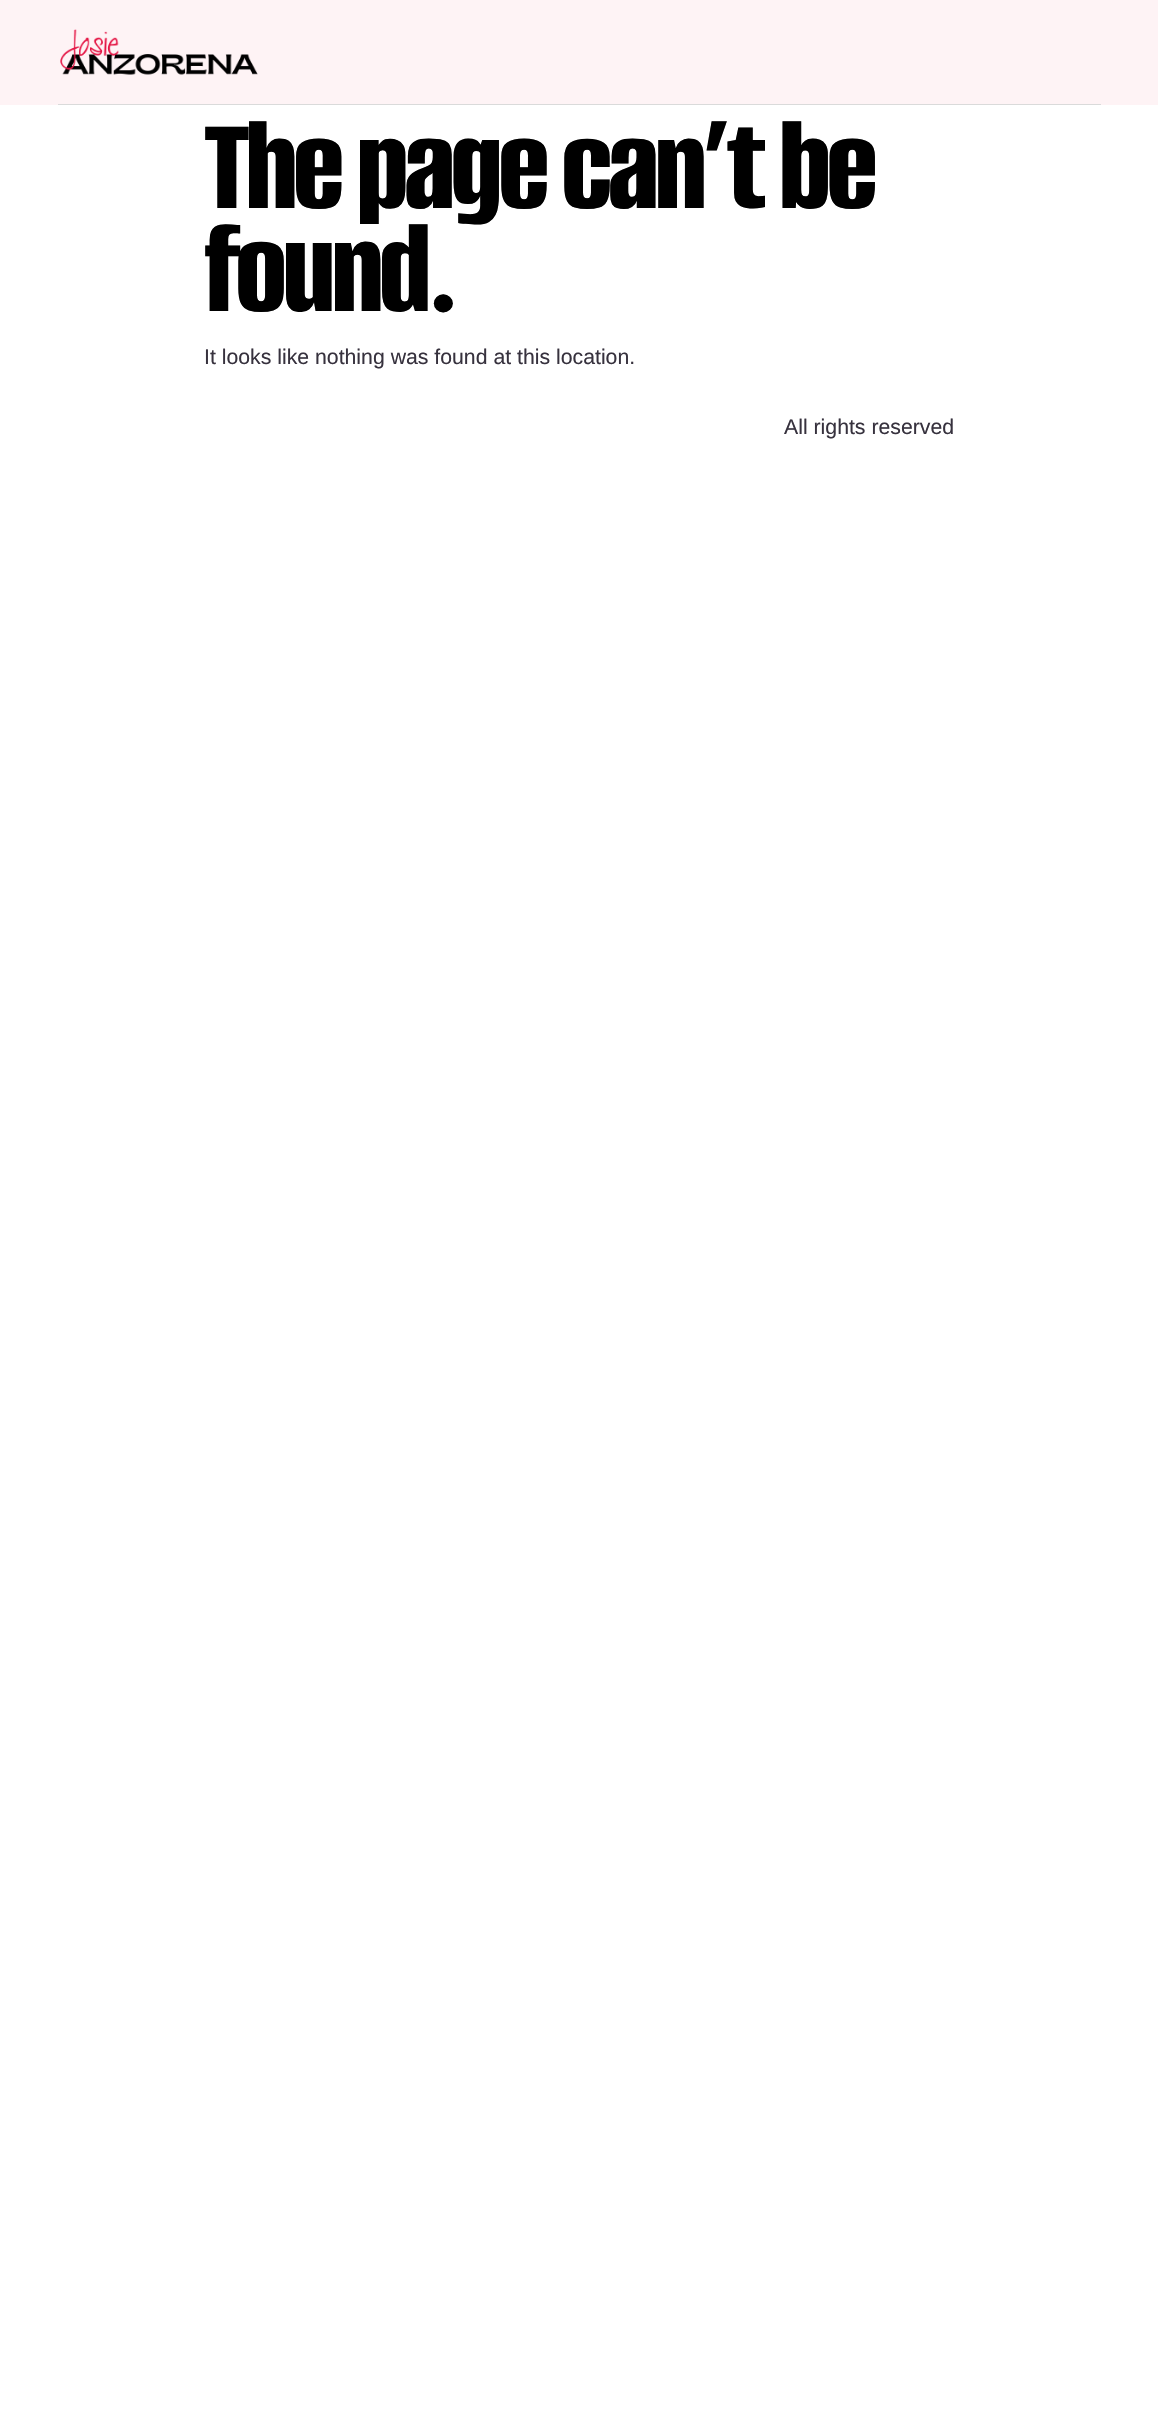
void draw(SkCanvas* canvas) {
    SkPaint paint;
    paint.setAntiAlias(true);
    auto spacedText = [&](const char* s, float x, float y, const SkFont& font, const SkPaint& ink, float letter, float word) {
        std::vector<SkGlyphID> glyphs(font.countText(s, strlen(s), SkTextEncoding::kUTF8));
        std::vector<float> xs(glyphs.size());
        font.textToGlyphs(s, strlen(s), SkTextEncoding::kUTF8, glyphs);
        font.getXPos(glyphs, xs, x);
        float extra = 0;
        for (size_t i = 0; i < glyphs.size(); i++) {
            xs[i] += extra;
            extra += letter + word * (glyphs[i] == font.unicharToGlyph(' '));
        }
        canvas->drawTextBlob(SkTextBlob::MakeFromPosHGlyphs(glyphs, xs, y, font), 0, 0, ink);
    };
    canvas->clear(0xFFFFFFFF);
    paint.setColor(0xFFFEF3F5);
    canvas->drawRect(SkRect::MakeXYWH(0, 0, 1158, 105), paint);
    paint.setColor(0xFFDADADA);
    canvas->drawRect(SkRect::MakeXYWH(58, 104, 1043, 1), paint);
    canvas->drawImageRect(SkImages::DeferredFromEncodedData(SkData::MakeFromFileName("img1.png")), SkRect::MakeXYWH(60, 29, 198, 46), SkSamplingOptions());
    SkFont font1(fontMgr->matchFamilyStyle("Alumni Sans", SkFontStyle(800, SkFontStyle::kNormal_Width, SkFontStyle::kUpright_Slant)), 137.5f);
    font1.setSubpixel(true);
    paint.setColor(0xFF000000);
    spacedText("The page can’t be", 204, 208, font1, paint, -5, 0);
    spacedText("found.", 204, 311, font1, paint, -5, 0);
    SkFont font2(fontMgr->matchFamilyStyle("Liberation Sans", SkFontStyle::Normal()), 21.25f);
    font2.setSubpixel(true);
    paint.setColor(0xFF37323E);
    canvas->drawString("It looks like nothing was found at this location.", 204, 364, font2, paint);
    canvas->drawString("All rights reserved", 784, 434, font2, paint);
}
